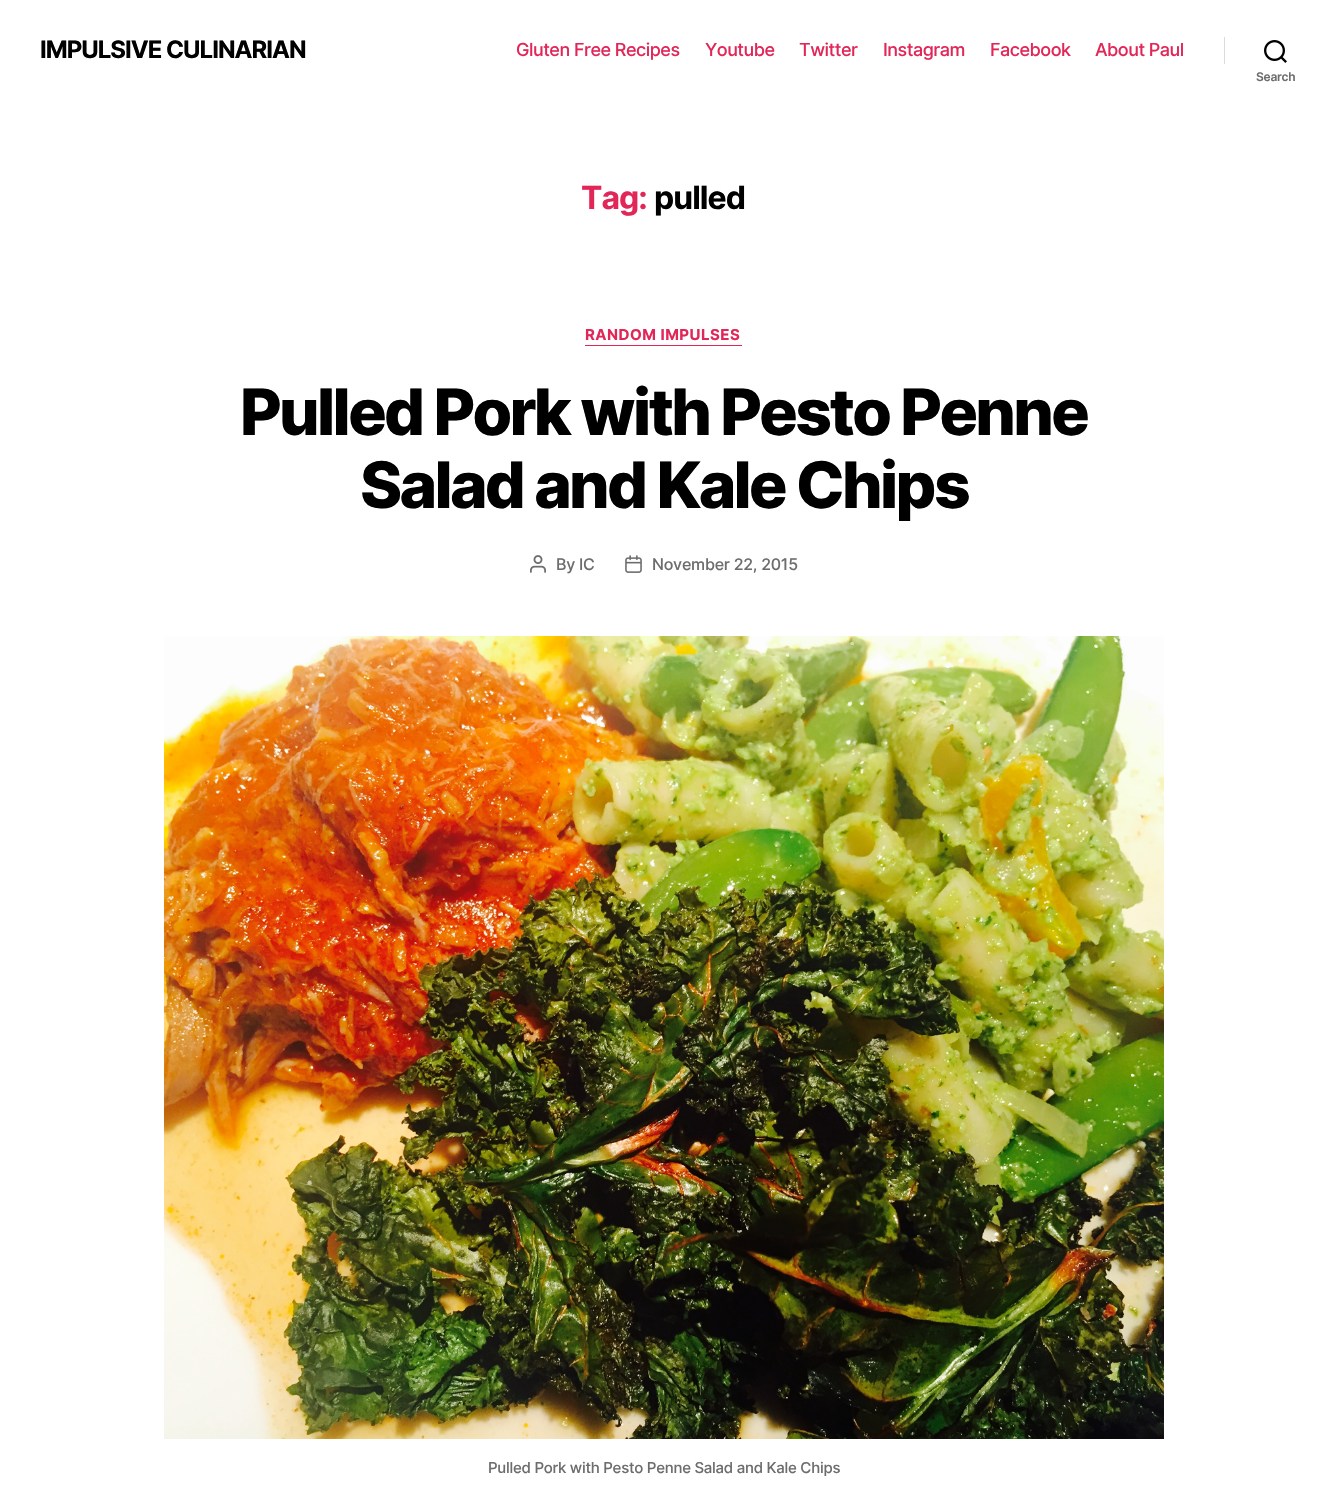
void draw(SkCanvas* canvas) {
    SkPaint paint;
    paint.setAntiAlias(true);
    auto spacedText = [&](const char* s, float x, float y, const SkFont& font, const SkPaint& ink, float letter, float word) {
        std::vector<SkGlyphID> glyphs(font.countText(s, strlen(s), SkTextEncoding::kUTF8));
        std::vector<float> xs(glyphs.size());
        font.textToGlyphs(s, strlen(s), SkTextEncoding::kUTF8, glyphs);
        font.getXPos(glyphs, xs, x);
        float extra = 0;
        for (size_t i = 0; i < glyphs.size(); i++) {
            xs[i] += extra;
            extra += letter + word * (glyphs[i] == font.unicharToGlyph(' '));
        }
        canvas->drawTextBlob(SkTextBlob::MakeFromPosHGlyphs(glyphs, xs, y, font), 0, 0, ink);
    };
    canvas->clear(0xFFFFFFFF);
    SkFont font1(fontMgr->matchFamilyStyle("Inter", SkFontStyle::Bold()), 24);
    font1.setSubpixel(true);
    paint.setColor(0xFF000000);
    spacedText("IMPULSIVE CULINARIAN", 40, 58, font1, paint, -1, 0);
    SkFont font2(fontMgr->matchFamilyStyle("Inter", SkFontStyle(500, SkFontStyle::kNormal_Width, SkFontStyle::kUpright_Slant)), 18);
    font2.setSubpixel(true);
    paint.setColor(0xFFE22658);
    spacedText("Gluten Free Recipes", 516, 56, font2, paint, -0.5f, 0);
    spacedText("Youtube", 705, 56, font2, paint, -0.5f, 0);
    spacedText("Twitter", 799, 56, font2, paint, -0.5f, 0);
    spacedText("Instagram", 883, 56, font2, paint, -0.5f, 0);
    spacedText("Facebook", 990, 56, font2, paint, -0.5f, 0);
    spacedText("About Paul", 1095, 56, font2, paint, -0.5f, 0);
    paint.setColor(0xFFDBDBDB);
    canvas->drawRect(SkRect::MakeXYWH(1224, 37, 1, 27), paint);
    canvas->drawImageRect(SkImages::DeferredFromEncodedData(SkData::MakeFromFileName("img1.png")), SkRect::MakeXYWH(1264, 40, 23, 23), SkSamplingOptions());
    SkFont font3(fontMgr->matchFamilyStyle("Inter", SkFontStyle(600, SkFontStyle::kNormal_Width, SkFontStyle::kUpright_Slant)), 12);
    font3.setSubpixel(true);
    paint.setColor(0xFF6D6D6D);
    spacedText("Search", 1256, 81, font3, paint, -0.25f, 0);
    SkFont font4(fontMgr->matchFamilyStyle("Inter", SkFontStyle::Bold()), 32);
    font4.setSubpixel(true);
    paint.setColor(0xFFE22658);
    spacedText("Tag:", 581, 209, font4, paint, -1, 0);
    paint.setColor(0xFF000000);
    spacedText("pulled", 654, 209, font4, paint, -1, 0);
    paint.setColor(0xFFE22658);
    canvas->drawRect(SkRect::MakeXYWH(585, 345, 157, 1), paint);
    SkFont font5(fontMgr->matchFamilyStyle("Inter", SkFontStyle::Bold()), 15);
    font5.setSubpixel(true);
    spacedText("RANDOM IMPULSES", 585, 340, font5, paint, 0.5f, 0);
    SkFont font6(fontMgr->matchFamilyStyle("Inter", SkFontStyle(800, SkFontStyle::kNormal_Width, SkFontStyle::kUpright_Slant)), 64);
    font6.setSubpixel(true);
    paint.setColor(0xFF000000);
    spacedText("Pulled Pork with Pesto Penne", 240, 435, font6, paint, -2.65f, 0);
    spacedText("Salad and Kale Chips", 360, 508, font6, paint, -2.65f, 0);
    canvas->drawImageRect(SkImages::DeferredFromEncodedData(SkData::MakeFromFileName("img2.png")), SkRect::MakeXYWH(530, 555, 16, 18), SkSamplingOptions());
    SkFont font7(fontMgr->matchFamilyStyle("Inter", SkFontStyle(500, SkFontStyle::kNormal_Width, SkFontStyle::kUpright_Slant)), 16);
    font7.setSubpixel(true);
    paint.setColor(0xFF6D6D6D);
    spacedText("By IC", 556, 570, font7, paint, -0.25f, 0);
    canvas->drawImageRect(SkImages::DeferredFromEncodedData(SkData::MakeFromFileName("img3.png")), SkRect::MakeXYWH(625, 555, 17, 18), SkSamplingOptions());
    spacedText("November 22, 2015", 652, 570, font7, paint, -0.25f, 0);
    canvas->drawImageRect(SkImages::DeferredFromEncodedData(SkData::MakeFromFileName("img4.png")), SkRect::MakeXYWH(164, 636, 1000, 803), SkSamplingOptions());
    SkFont font8(fontMgr->matchFamilyStyle("Inter", SkFontStyle(500, SkFontStyle::kNormal_Width, SkFontStyle::kUpright_Slant)), 15);
    font8.setSubpixel(true);
    spacedText("Pulled Pork with Pesto Penne Salad and Kale Chips", 488, 1473, font8, paint, -0.25f, 0);
}
